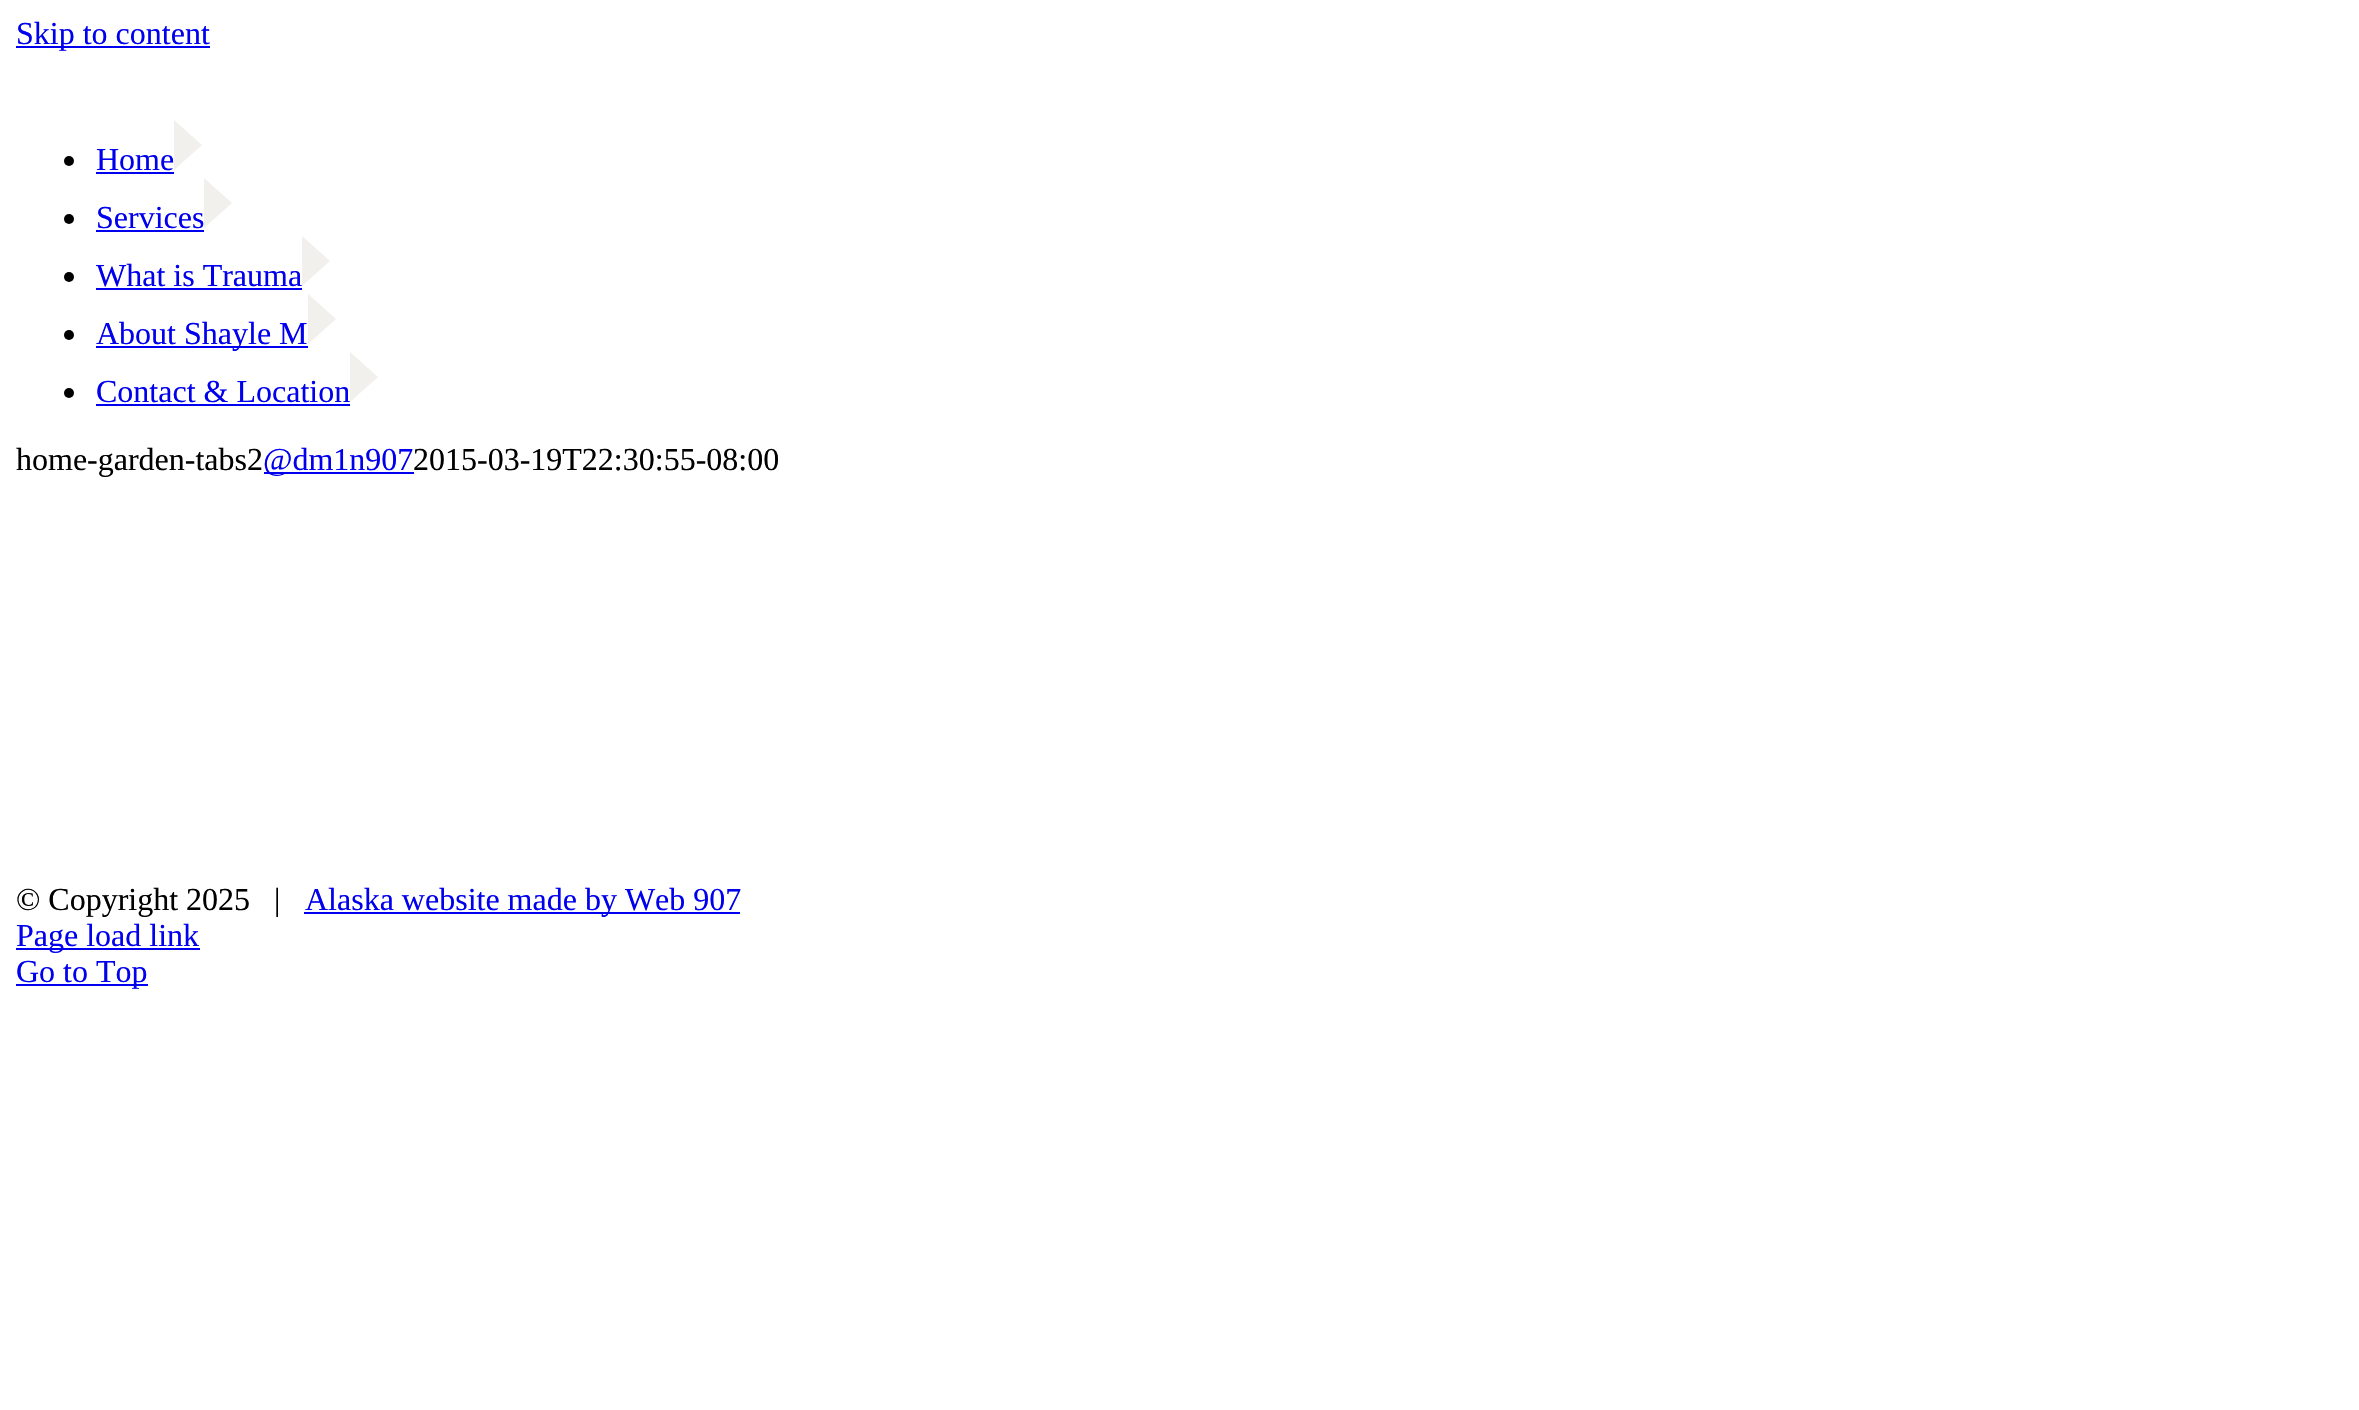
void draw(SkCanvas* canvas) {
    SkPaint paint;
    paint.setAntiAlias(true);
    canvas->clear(0xFFFFFFFF);
    paint.setColor(0xFF0000EE);
    canvas->drawRect(SkRect::MakeXYWH(16, 46, 194, 2), paint);
    SkFont font1(fontMgr->matchFamilyStyle("Liberation Serif", SkFontStyle::Normal()), 32);
    font1.setSubpixel(true);
    canvas->drawString("Skip to content", 16, 44, font1, paint);
    paint.setColor(0xFF000000);
    canvas->drawCircle(69, 161, 5, paint);
    paint.setColor(0xFF0000EE);
    canvas->drawString("Home", 96, 170, font1, paint);
    canvas->drawRect(SkRect::MakeXYWH(96, 172, 78, 2), paint);
    paint.setColor(0xFFF1F0EC);
    canvas->drawPath(SkPathBuilder().moveTo(174, 120).lineTo(202, 145).lineTo(174, 170).close().detach(), paint);
    paint.setColor(0xFF000000);
    canvas->drawCircle(69, 219, 5, paint);
    paint.setColor(0xFF0000EE);
    canvas->drawString("Services", 96, 228, font1, paint);
    canvas->drawRect(SkRect::MakeXYWH(96, 230, 108, 2), paint);
    paint.setColor(0xFFF1F0EC);
    canvas->drawPath(SkPathBuilder().moveTo(204, 178).lineTo(232, 203).lineTo(204, 228).close().detach(), paint);
    paint.setColor(0xFF000000);
    canvas->drawCircle(69, 277, 5, paint);
    paint.setColor(0xFF0000EE);
    canvas->drawString("What is Trauma", 96, 286, font1, paint);
    canvas->drawRect(SkRect::MakeXYWH(96, 288, 206, 2), paint);
    paint.setColor(0xFFF1F0EC);
    canvas->drawPath(SkPathBuilder().moveTo(302, 236).lineTo(330, 261).lineTo(302, 286).close().detach(), paint);
    paint.setColor(0xFF000000);
    canvas->drawCircle(69, 335, 5, paint);
    paint.setColor(0xFF0000EE);
    canvas->drawRect(SkRect::MakeXYWH(96, 346, 212, 2), paint);
    canvas->drawString("About Shayle M", 96, 344, font1, paint);
    paint.setColor(0xFFF1F0EC);
    canvas->drawPath(SkPathBuilder().moveTo(308, 294).lineTo(336, 319).lineTo(308, 344).close().detach(), paint);
    paint.setColor(0xFF000000);
    canvas->drawCircle(69, 393, 5, paint);
    paint.setColor(0xFF0000EE);
    canvas->drawString("Contact & Location", 96, 402, font1, paint);
    canvas->drawRect(SkRect::MakeXYWH(96, 404, 254, 2), paint);
    paint.setColor(0xFFF1F0EC);
    canvas->drawPath(SkPathBuilder().moveTo(350, 352).lineTo(378, 377).lineTo(350, 402).close().detach(), paint);
    paint.setColor(0xFF000000);
    canvas->drawString("home-garden-tabs2", 16, 470, font1, paint);
    paint.setColor(0xFF0000EE);
    canvas->drawRect(SkRect::MakeXYWH(264, 472, 150, 2), paint);
    canvas->drawString("@dm1n907", 263, 470, font1, paint);
    paint.setColor(0xFF000000);
    canvas->drawString("2015-03-19T22:30:55-08:00", 413, 470, font1, paint);
    canvas->drawString("© Copyright 2025   |", 16, 910, font1, paint);
    paint.setColor(0xFF0000EE);
    canvas->drawRect(SkRect::MakeXYWH(304, 912, 436, 2), paint);
    canvas->drawString("Alaska website made by Web 907", 305, 910, font1, paint);
    canvas->drawRect(SkRect::MakeXYWH(16, 948, 184, 2), paint);
    canvas->drawString("Page load link", 16, 946, font1, paint);
    canvas->drawRect(SkRect::MakeXYWH(16, 984, 132, 2), paint);
    canvas->drawString("Go to Top", 16, 982, font1, paint);
}
